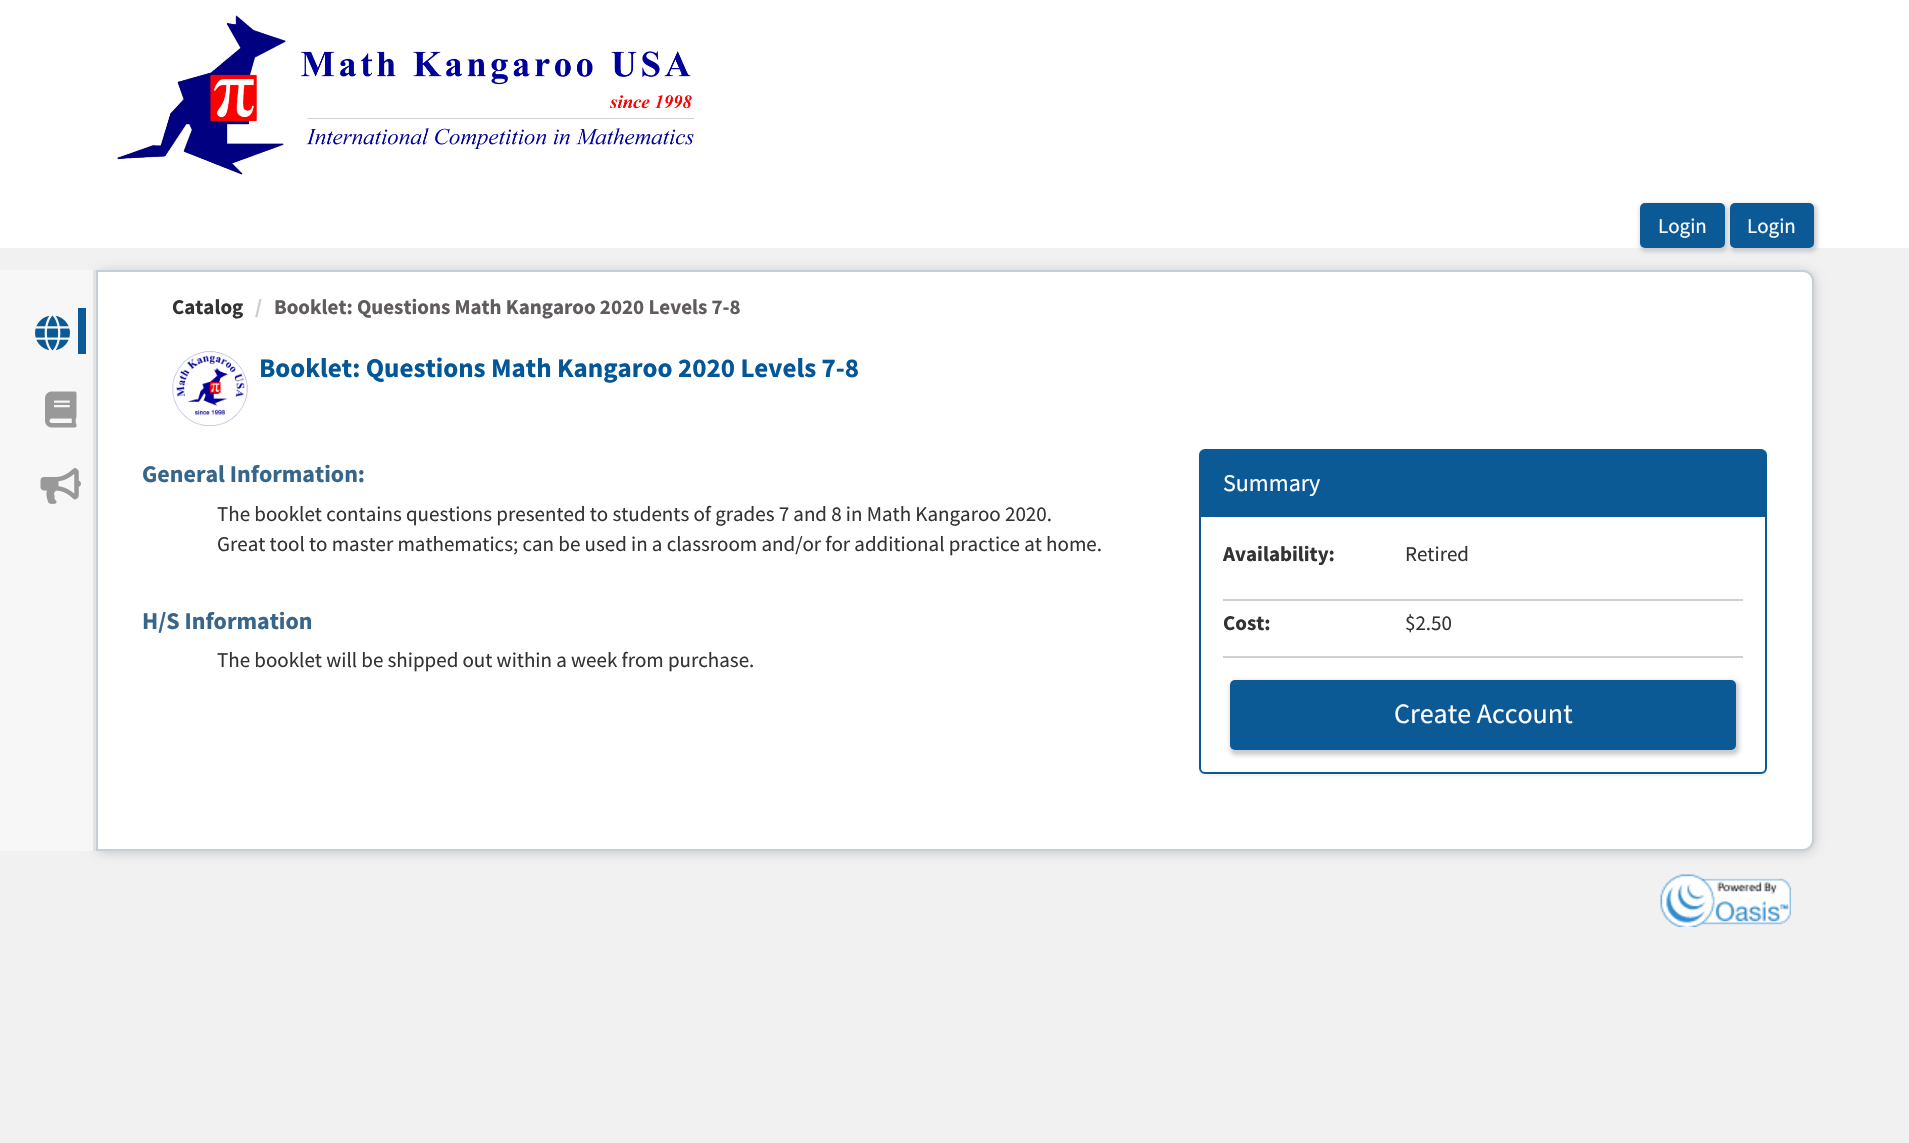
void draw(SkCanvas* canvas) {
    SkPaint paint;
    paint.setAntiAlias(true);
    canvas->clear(0xFFF1F1F1);
    paint.setColor(0xFFFFFFFF);
    canvas->drawRect(SkRect::MakeXYWH(0, 0, 1909, 248), paint);
    canvas->drawImageRect(SkImages::DeferredFromEncodedData(SkData::MakeFromFileName("img1.png")), SkRect::MakeXYWH(117, 15, 578, 160), SkSamplingOptions());
    paint.setColor(0xFFCCCCCC);
    paint.setMaskFilter(SkMaskFilter::MakeBlur(kNormal_SkBlurStyle, 2));
    canvas->drawRoundRect(SkRect::MakeXYWH(1640, 204, 88, 48), 6, 6, paint);
    paint.setMaskFilter(nullptr);
    paint.setColor(0xFF0B5995);
    canvas->drawRoundRect(SkRect::MakeXYWH(1640, 203, 85, 45), 5, 5, paint);
    SkFont font1(fontMgr->matchFamilyStyle("Source Sans Pro", SkFontStyle::Normal()), 21);
    font1.setSubpixel(true);
    paint.setColor(0xFFFFFFFF);
    canvas->drawString("Login", 1658, 233, font1, paint);
    paint.setColor(0xFFCCCCCC);
    paint.setMaskFilter(SkMaskFilter::MakeBlur(kNormal_SkBlurStyle, 2));
    canvas->drawRoundRect(SkRect::MakeXYWH(1730, 204, 87, 48), 6, 6, paint);
    paint.setMaskFilter(nullptr);
    paint.setColor(0xFF0B5995);
    canvas->drawRoundRect(SkRect::MakeXYWH(1730, 203, 84, 45), 5, 5, paint);
    paint.setColor(0xFFFFFFFF);
    canvas->drawString("Login", 1747, 233, font1, paint);
    paint.setColor(0x33000000);
    paint.setMaskFilter(SkMaskFilter::MakeBlur(kNormal_SkBlurStyle, 6));
    canvas->drawRoundRect(SkRect::MakeXYWH(96, 272, 1718, 580), 11, 11, paint);
    paint.setMaskFilter(nullptr);
    paint.setColor(0xFFF7F7F7);
    canvas->drawRect(SkRect::MakeXYWH(0, 270, 93, 581), paint);
    paint.setColor(0xFFE3E3E3);
    canvas->drawRect(SkRect::MakeXYWH(93, 270, 3, 581), paint);
    paint.setColor(0xFF0B5995);
    canvas->drawRect(SkRect::MakeXYWH(78, 308, 8, 46), paint);
    canvas->drawImageRect(SkImages::DeferredFromEncodedData(SkData::MakeFromFileName("img2.png")), SkRect::MakeXYWH(35, 315, 35, 36), SkSamplingOptions());
    canvas->drawImageRect(SkImages::DeferredFromEncodedData(SkData::MakeFromFileName("img3.png")), SkRect::MakeXYWH(45, 391, 32, 37), SkSamplingOptions());
    canvas->drawImageRect(SkImages::DeferredFromEncodedData(SkData::MakeFromFileName("img4.png")), SkRect::MakeXYWH(40, 468, 41, 36), SkSamplingOptions());
    paint.setColor(0xFFFFFFFF);
    canvas->drawPath(SkPathBuilder().moveTo(97, 271).lineTo(1803, 271).cubicTo(1808.5f, 271, 1813, 275.5f, 1813, 281).lineTo(1813, 840).cubicTo(1813, 845.5f, 1808.5f, 850, 1803, 850).lineTo(97, 850).close().detach(), paint);
    paint.setStyle(SkPaint::kStroke_Style);
    paint.setStrokeWidth(2);
    paint.setColor(0xFFC5CFD9);
    canvas->drawPath(SkPathBuilder().moveTo(97, 271).lineTo(1803, 271).cubicTo(1808.5f, 271, 1813, 275.5f, 1813, 281).lineTo(1813, 840).cubicTo(1813, 845.5f, 1808.5f, 850, 1803, 850).lineTo(97, 850).close().detach(), paint);
    SkFont font2(fontMgr->matchFamilyStyle("Source Sans Pro", SkFontStyle::Bold()), 21);
    font2.setSubpixel(true);
    paint.setStyle(SkPaint::kFill_Style);
    paint.setColor(0xFF333333);
    canvas->drawString("Catalog", 172, 314, font2, paint);
    paint.setColor(0xFFCCCCCC);
    canvas->drawString("/", 255, 314, font2, paint);
    paint.setColor(0xFF5F5B5F);
    canvas->drawString("Booklet: Questions Math Kangaroo 2020 Levels 7-8", 274, 314, font2, paint);
    canvas->drawImageRect(SkImages::DeferredFromEncodedData(SkData::MakeFromFileName("img5.png")), SkRect::MakeXYWH(172, 351, 76, 75), SkSamplingOptions());
    SkFont font3(fontMgr->matchFamilyStyle("Source Sans Pro", SkFontStyle::Bold()), 27);
    font3.setSubpixel(true);
    paint.setColor(0xFF045796);
    canvas->drawString("Booklet: Questions Math Kangaroo 2020 Levels 7-8", 259, 377, font3, paint);
    SkFont font4(fontMgr->matchFamilyStyle("Source Sans Pro", SkFontStyle::Bold()), 24);
    font4.setSubpixel(true);
    paint.setColor(0xFF38668A);
    canvas->drawString("General Information:", 142, 482, font4, paint);
    paint.setColor(0xFF333333);
    canvas->drawString("The booklet contains questions presented to students of grades 7 and 8 in Math Kangaroo 2020.", 217, 521, font1, paint);
    canvas->drawString("Great tool to master mathematics; can be used in a classroom and/or for additional practice at home.", 217, 551, font1, paint);
    paint.setColor(0xFF38668A);
    canvas->drawString("H/S Information", 142, 629, font4, paint);
    paint.setColor(0xFF333333);
    canvas->drawString("The booklet will be shipped out within a week from purchase.", 217, 667, font1, paint);
    paint.setColor(0x0D000000);
    paint.setMaskFilter(SkMaskFilter::MakeBlur(kNormal_SkBlurStyle, 1));
    canvas->drawRoundRect(SkRect::MakeXYWH(1199, 450, 568, 326), 6, 6, paint);
    paint.setMaskFilter(nullptr);
    paint.setColor(0xFFFFFFFF);
    canvas->drawRoundRect(SkRect::MakeXYWH(1200, 450, 566, 323), 5, 5, paint);
    paint.setStyle(SkPaint::kStroke_Style);
    paint.setColor(0xFF0B5995);
    canvas->drawRoundRect(SkRect::MakeXYWH(1200, 450, 566, 323), 5, 5, paint);
    paint.setStyle(SkPaint::kFill_Style);
    canvas->drawPath(SkPathBuilder().moveTo(1205, 450).lineTo(1761, 450).cubicTo(1764, 450, 1766, 452, 1766, 455).lineTo(1766, 516).lineTo(1200, 516).lineTo(1200, 455).cubicTo(1200, 452, 1202, 450, 1205, 450).close().detach(), paint);
    canvas->drawRect(SkRect::MakeXYWH(1200, 516, 566, 1), paint);
    SkFont font5(fontMgr->matchFamilyStyle("Source Sans Pro", SkFontStyle::Normal()), 24);
    font5.setSubpixel(true);
    paint.setColor(0xFFFFFFFF);
    canvas->drawString("Summary", 1223, 491, font5, paint);
    paint.setColor(0xFF333333);
    canvas->drawString("Availability:", 1223, 561, font2, paint);
    canvas->drawString("Retired", 1405, 561, font1, paint);
    paint.setColor(0xFFD0D0D0);
    canvas->drawRect(SkRect::MakeXYWH(1223, 599, 520, 2), paint);
    paint.setColor(0xFF333333);
    canvas->drawString("Cost:", 1223, 630, font2, paint);
    canvas->drawString("$2.50", 1405, 630, font1, paint);
    paint.setColor(0xFFD0D0D0);
    canvas->drawRect(SkRect::MakeXYWH(1223, 656, 520, 2), paint);
    paint.setColor(0xFFCCCCCC);
    paint.setMaskFilter(SkMaskFilter::MakeBlur(kNormal_SkBlurStyle, 2));
    canvas->drawRoundRect(SkRect::MakeXYWH(1230, 681, 509, 74), 6, 6, paint);
    paint.setMaskFilter(nullptr);
    paint.setColor(0xFF0B5995);
    canvas->drawRoundRect(SkRect::MakeXYWH(1230, 680, 506, 70), 5, 5, paint);
    SkFont font6(fontMgr->matchFamilyStyle("Source Sans Pro", SkFontStyle::Normal()), 28);
    font6.setSubpixel(true);
    paint.setColor(0xFFFFFFFF);
    canvas->drawString("Create Account", 1394, 723, font6, paint);
    canvas->drawImageRect(SkImages::DeferredFromEncodedData(SkData::MakeFromFileName("img6.png")), SkRect::MakeXYWH(1660, 874, 131, 53), SkSamplingOptions());
}
